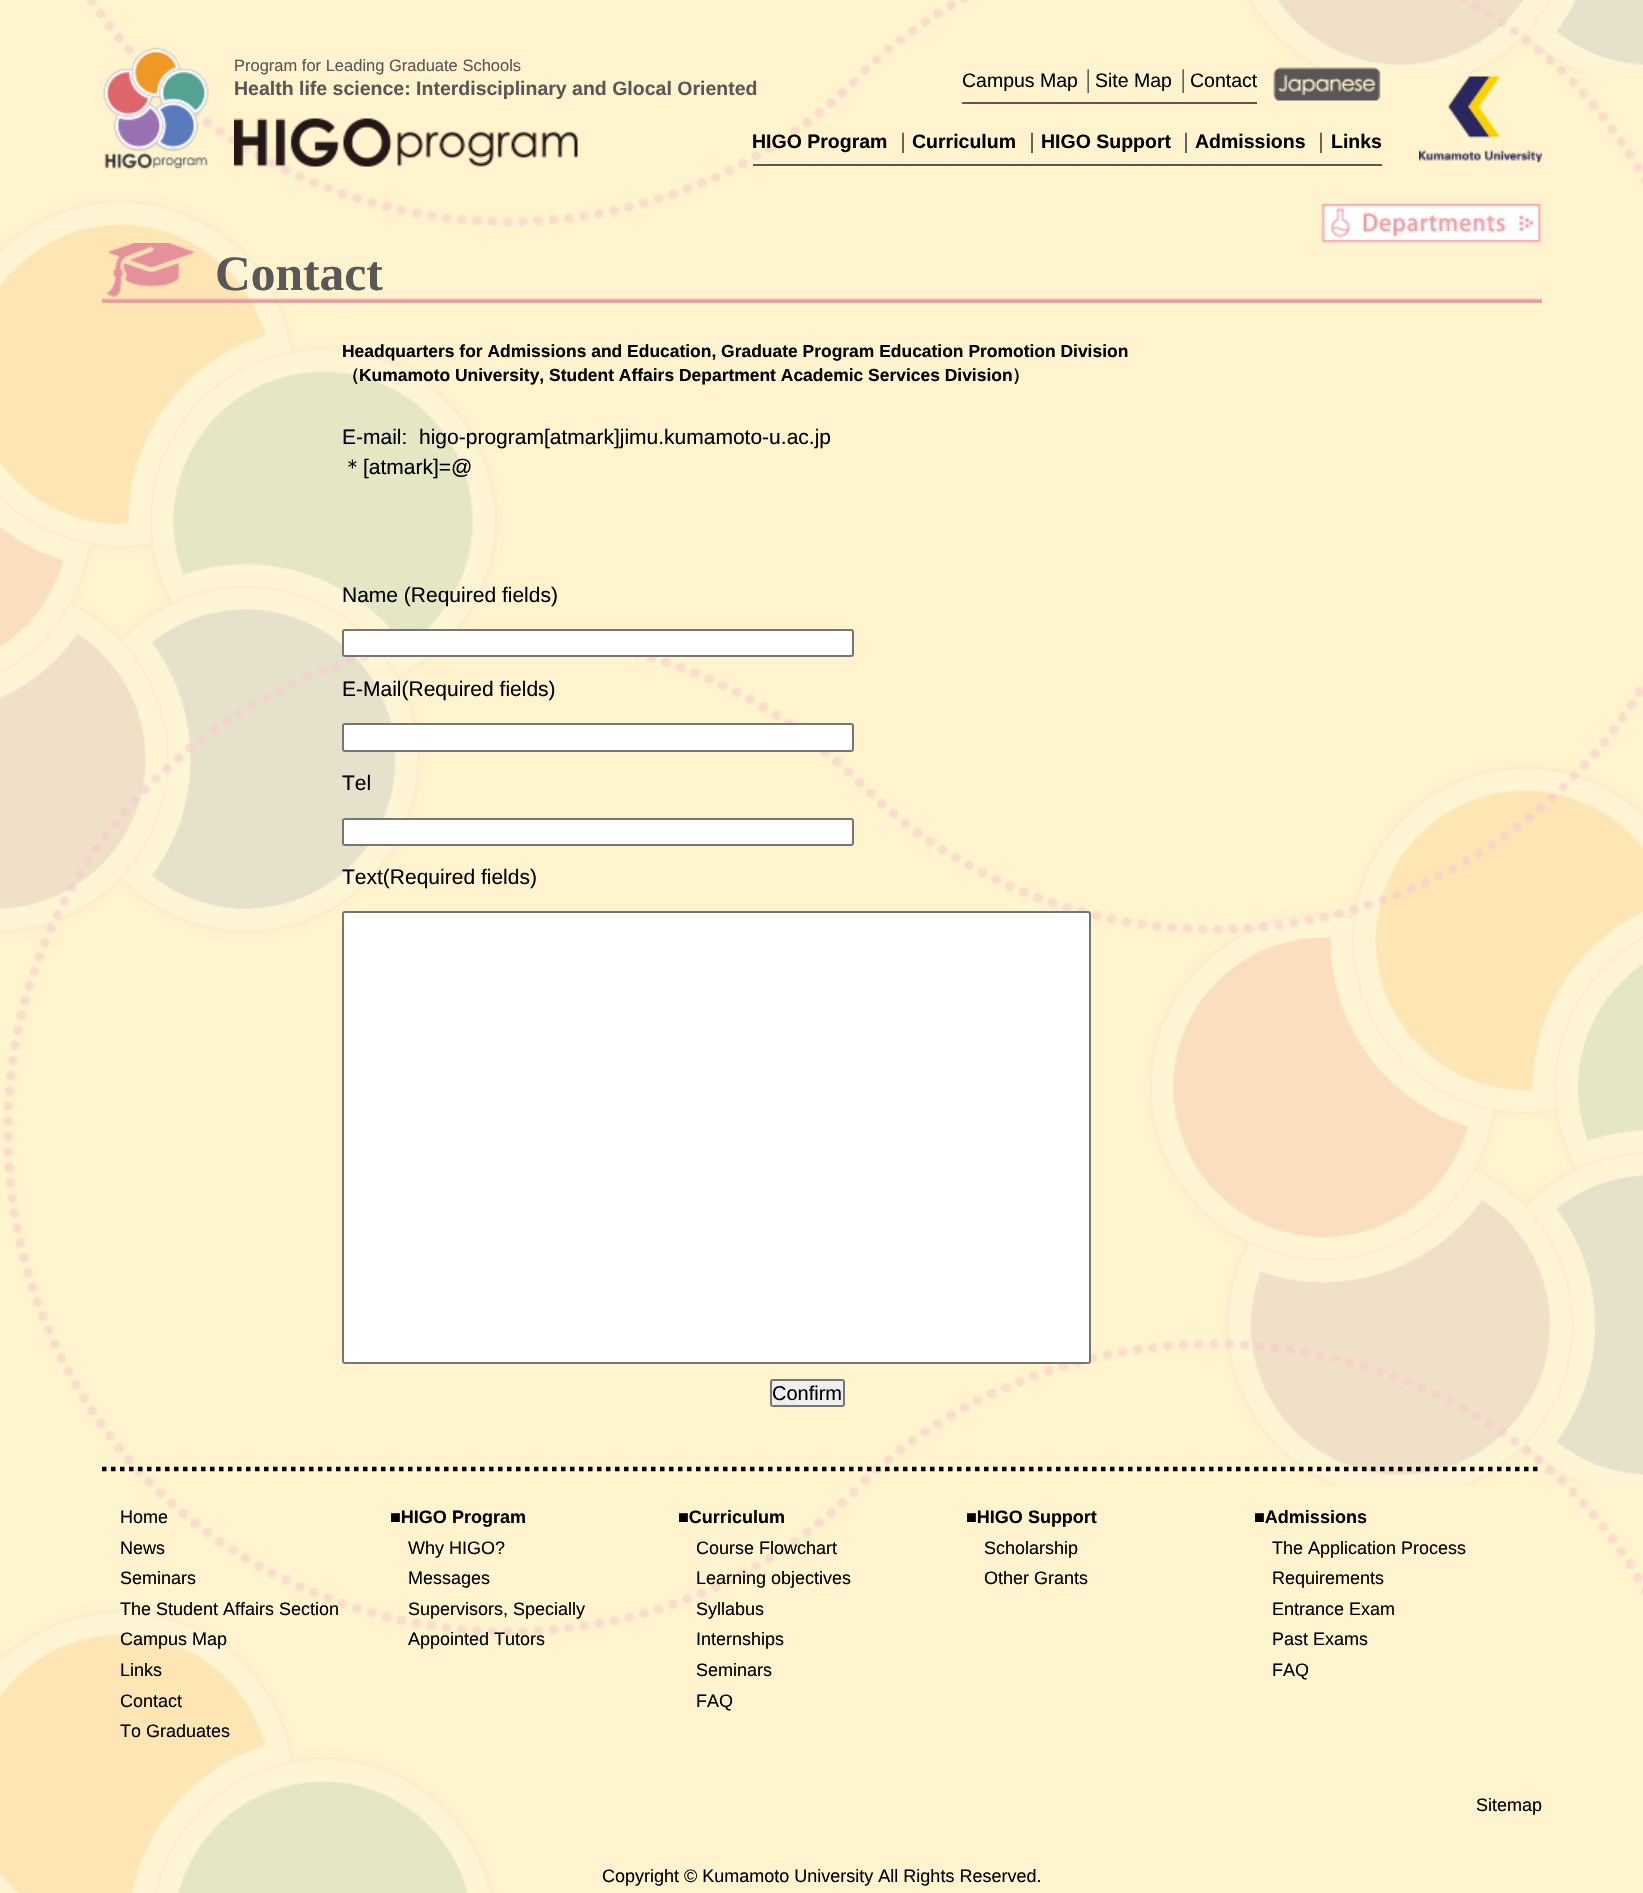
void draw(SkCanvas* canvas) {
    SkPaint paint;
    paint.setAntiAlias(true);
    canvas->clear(0xFFFFF4CD);
    canvas->drawImageRect(SkImages::DeferredFromEncodedData(SkData::MakeFromFileName("img1.png")), SkRect::MakeXYWH(0, 0, 1643, 1893), SkSamplingOptions());
    canvas->drawImageRect(SkImages::DeferredFromEncodedData(SkData::MakeFromFileName("img2.png")), SkRect::MakeXYWH(103, 47, 106, 122), SkSamplingOptions());
    SkFont font1(fontMgr->matchFamilyStyle("Liberation Sans", SkFontStyle::Normal()), 16.5f);
    font1.setSubpixel(true);
    paint.setColor(0xFF595757);
    canvas->drawString("Program for Leading Graduate Schools", 234, 71, font1, paint);
    SkFont font2(fontMgr->matchFamilyStyle("Liberation Sans", SkFontStyle::Bold()), 19.5f);
    font2.setSubpixel(true);
    canvas->drawString("Health life science: Interdisciplinary and Glocal Oriented", 234, 95, font2, paint);
    canvas->drawImageRect(SkImages::DeferredFromEncodedData(SkData::MakeFromFileName("img3.png")), SkRect::MakeXYWH(234, 118, 344, 49), SkSamplingOptions());
    canvas->drawRect(SkRect::MakeXYWH(962, 102, 295, 2), paint);
    SkFont font3(fontMgr->matchFamilyStyle("Liberation Sans", SkFontStyle::Normal()), 19.5f);
    font3.setSubpixel(true);
    paint.setColor(0xFF000000);
    canvas->drawString("Campus Map", 962, 87, font3, paint);
    paint.setColor(0xFF595757);
    canvas->drawString("│", 1083, 87, font3, paint);
    paint.setColor(0xFF000000);
    canvas->drawString("Site Map", 1095, 87, font3, paint);
    paint.setColor(0xFF595757);
    canvas->drawString("│", 1178, 87, font3, paint);
    paint.setColor(0xFF000000);
    canvas->drawString("Contact", 1190, 87, font3, paint);
    canvas->drawImageRect(SkImages::DeferredFromEncodedData(SkData::MakeFromFileName("img4.png")), SkRect::MakeXYWH(1273, 67, 108, 34), SkSamplingOptions());
    canvas->drawImageRect(SkImages::DeferredFromEncodedData(SkData::MakeFromFileName("img5.png")), SkRect::MakeXYWH(1419, 76, 123, 87), SkSamplingOptions());
    paint.setColor(0xFF595757);
    canvas->drawRect(SkRect::MakeXYWH(753, 164, 629, 2), paint);
    paint.setColor(0xFF000000);
    canvas->drawString("HIGO Program", 752, 148, font2, paint);
    SkFont font4(fontMgr->matchFamilyStyle("WenQuanYi Zen Hei", SkFontStyle::Bold()), 19.5f);
    font4.setSubpixel(true);
    paint.setColor(0xFF595757);
    canvas->drawString("｜", 893, 148, font4, paint);
    paint.setColor(0xFF000000);
    canvas->drawString("Curriculum", 912, 148, font2, paint);
    paint.setColor(0xFF595757);
    canvas->drawString("｜", 1022, 148, font4, paint);
    paint.setColor(0xFF000000);
    canvas->drawString("HIGO Support", 1041, 148, font2, paint);
    paint.setColor(0xFF595757);
    canvas->drawString("｜", 1176, 148, font4, paint);
    paint.setColor(0xFF000000);
    canvas->drawString("Admissions", 1195, 148, font2, paint);
    paint.setColor(0xFF595757);
    canvas->drawString("｜", 1311, 148, font4, paint);
    paint.setColor(0xFF000000);
    canvas->drawString("Links", 1331, 148, font2, paint);
    canvas->drawImageRect(SkImages::DeferredFromEncodedData(SkData::MakeFromFileName("img6.png")), SkRect::MakeXYWH(1321, 203, 220, 40), SkSamplingOptions());
    canvas->drawImageRect(SkImages::DeferredFromEncodedData(SkData::MakeFromFileName("img7.png")), SkRect::MakeXYWH(102, 243, 1440, 60), SkSamplingOptions());
    SkFont font5(fontMgr->matchFamilyStyle("Liberation Serif", SkFontStyle::Bold()), 49.5f);
    font5.setSubpixel(true);
    paint.setColor(0xFF595757);
    canvas->drawString("Contact", 215, 290, font5, paint);
    SkFont font6(fontMgr->matchFamilyStyle("Liberation Sans", SkFontStyle::Bold()), 17.45f);
    font6.setSubpixel(true);
    paint.setColor(0xFF000000);
    canvas->drawString("Headquarters for Admissions and Education, Graduate Program Education Promotion Division", 342, 357, font6, paint);
    SkFont font7(fontMgr->matchFamilyStyle("WenQuanYi Zen Hei", SkFontStyle::Bold()), 17.45f);
    font7.setSubpixel(true);
    canvas->drawString("（", 342, 381, font7, paint);
    canvas->drawString("Kumamoto University, Student Affairs Department Academic Services Division", 359, 381, font6, paint);
    canvas->drawString("）", 1012, 381, font7, paint);
    SkFont font8(fontMgr->matchFamilyStyle("Liberation Sans", SkFontStyle::Normal()), 21);
    font8.setSubpixel(true);
    canvas->drawString("E-mail:  higo-program[atmark]jimu.kumamoto-u.ac.jp", 342, 444, font8, paint);
    SkFont font9(fontMgr->matchFamilyStyle("WenQuanYi Zen Hei", SkFontStyle(500, SkFontStyle::kNormal_Width, SkFontStyle::kUpright_Slant)), 21);
    font9.setSubpixel(true);
    canvas->drawString("＊", 342, 474, font9, paint);
    canvas->drawString("[atmark]=@", 363, 474, font8, paint);
    canvas->drawString("Name (Required fields)", 342, 602, font8, paint);
    paint.setColor(0xFFFFFFFF);
    canvas->drawRoundRect(SkRect::MakeXYWH(343, 630, 510, 26), 2, 2, paint);
    paint.setStyle(SkPaint::kStroke_Style);
    paint.setStrokeWidth(2);
    paint.setColor(0xFF767676);
    canvas->drawRoundRect(SkRect::MakeXYWH(343, 630, 510, 26), 2, 2, paint);
    paint.setStyle(SkPaint::kFill_Style);
    paint.setColor(0xFF000000);
    canvas->drawString("E-Mail(Required fields)", 342, 696, font8, paint);
    paint.setColor(0xFFFFFFFF);
    canvas->drawRoundRect(SkRect::MakeXYWH(343, 724, 510, 27), 2, 2, paint);
    paint.setStyle(SkPaint::kStroke_Style);
    paint.setColor(0xFF767676);
    canvas->drawRoundRect(SkRect::MakeXYWH(343, 724, 510, 27), 2, 2, paint);
    paint.setStyle(SkPaint::kFill_Style);
    paint.setColor(0xFF000000);
    canvas->drawString("Tel", 342, 790, font8, paint);
    paint.setColor(0xFFFFFFFF);
    canvas->drawRoundRect(SkRect::MakeXYWH(343, 819, 510, 26), 2, 2, paint);
    paint.setStyle(SkPaint::kStroke_Style);
    paint.setColor(0xFF767676);
    canvas->drawRoundRect(SkRect::MakeXYWH(343, 819, 510, 26), 2, 2, paint);
    paint.setStyle(SkPaint::kFill_Style);
    paint.setColor(0xFF000000);
    canvas->drawString("Text(Required fields)", 342, 884, font8, paint);
    paint.setColor(0xFFFFFFFF);
    canvas->drawRoundRect(SkRect::MakeXYWH(343, 912, 747, 451), 2, 2, paint);
    paint.setStyle(SkPaint::kStroke_Style);
    paint.setColor(0xFF767676);
    canvas->drawRoundRect(SkRect::MakeXYWH(343, 912, 747, 451), 2, 2, paint);
    paint.setStyle(SkPaint::kFill_Style);
    paint.setColor(0xFFEFEFEF);
    canvas->drawRoundRect(SkRect::MakeXYWH(771, 1380, 73, 26), 2, 2, paint);
    paint.setStyle(SkPaint::kStroke_Style);
    paint.setColor(0xFF767676);
    canvas->drawRoundRect(SkRect::MakeXYWH(771, 1380, 73, 26), 2, 2, paint);
    SkFont font10(fontMgr->matchFamilyStyle("Liberation Sans", SkFontStyle::Normal()), 20);
    font10.setSubpixel(true);
    paint.setStyle(SkPaint::kFill_Style);
    paint.setColor(0xFF000000);
    canvas->drawString("Confirm", 772, 1400, font10, paint);
    paint.setStyle(SkPaint::kStroke_Style);
    paint.setStrokeWidth(4.5f);
    paint.setPathEffect(SkDashPathEffect::Make({{4.5f, 4.5f}}, 0));
    canvas->drawPath(SkPathBuilder().moveTo(102, 1469).lineTo(1542, 1469).detach(), paint);
    paint.setPathEffect(nullptr);
    SkFont font11(fontMgr->matchFamilyStyle("Liberation Sans", SkFontStyle::Normal()), 18);
    font11.setSubpixel(true);
    paint.setStyle(SkPaint::kFill_Style);
    canvas->drawString("Home", 120, 1523, font11, paint);
    canvas->drawString("News", 120, 1554, font11, paint);
    canvas->drawString("Seminars", 120, 1584, font11, paint);
    canvas->drawString("The Student Affairs Section", 120, 1615, font11, paint);
    canvas->drawString("Campus Map", 120, 1645, font11, paint);
    canvas->drawString("Links", 120, 1676, font11, paint);
    canvas->drawString("Contact", 120, 1707, font11, paint);
    canvas->drawString("To Graduates", 120, 1737, font11, paint);
    SkFont font12(fontMgr->matchFamilyStyle("Liberation Sans", SkFontStyle::Bold()), 18);
    font12.setSubpixel(true);
    canvas->drawString("■HIGO Program", 390, 1523, font12, paint);
    canvas->drawString("Why HIGO?", 408, 1554, font11, paint);
    canvas->drawString("Messages", 408, 1584, font11, paint);
    canvas->drawString("Supervisors, Specially", 408, 1615, font11, paint);
    canvas->drawString("Appointed Tutors", 408, 1645, font11, paint);
    canvas->drawString("■Curriculum", 678, 1523, font12, paint);
    canvas->drawString("Course Flowchart", 696, 1554, font11, paint);
    canvas->drawString("Learning objectives", 696, 1584, font11, paint);
    canvas->drawString("Syllabus", 696, 1615, font11, paint);
    canvas->drawString("Internships", 696, 1645, font11, paint);
    canvas->drawString("Seminars", 696, 1676, font11, paint);
    canvas->drawString("FAQ", 696, 1707, font11, paint);
    canvas->drawString("■HIGO Support", 966, 1523, font12, paint);
    canvas->drawString("Scholarship", 984, 1554, font11, paint);
    canvas->drawString("Other Grants", 984, 1584, font11, paint);
    canvas->drawString("■Admissions", 1254, 1523, font12, paint);
    canvas->drawString("The Application Process", 1272, 1554, font11, paint);
    canvas->drawString("Requirements", 1272, 1584, font11, paint);
    canvas->drawString("Entrance Exam", 1272, 1615, font11, paint);
    canvas->drawString("Past Exams", 1272, 1645, font11, paint);
    canvas->drawString("FAQ", 1272, 1676, font11, paint);
    canvas->drawString("Sitemap", 1476, 1811, font11, paint);
    canvas->drawString("Copyright © Kumamoto University All Rights Reserved.", 602, 1882, font11, paint);
}
